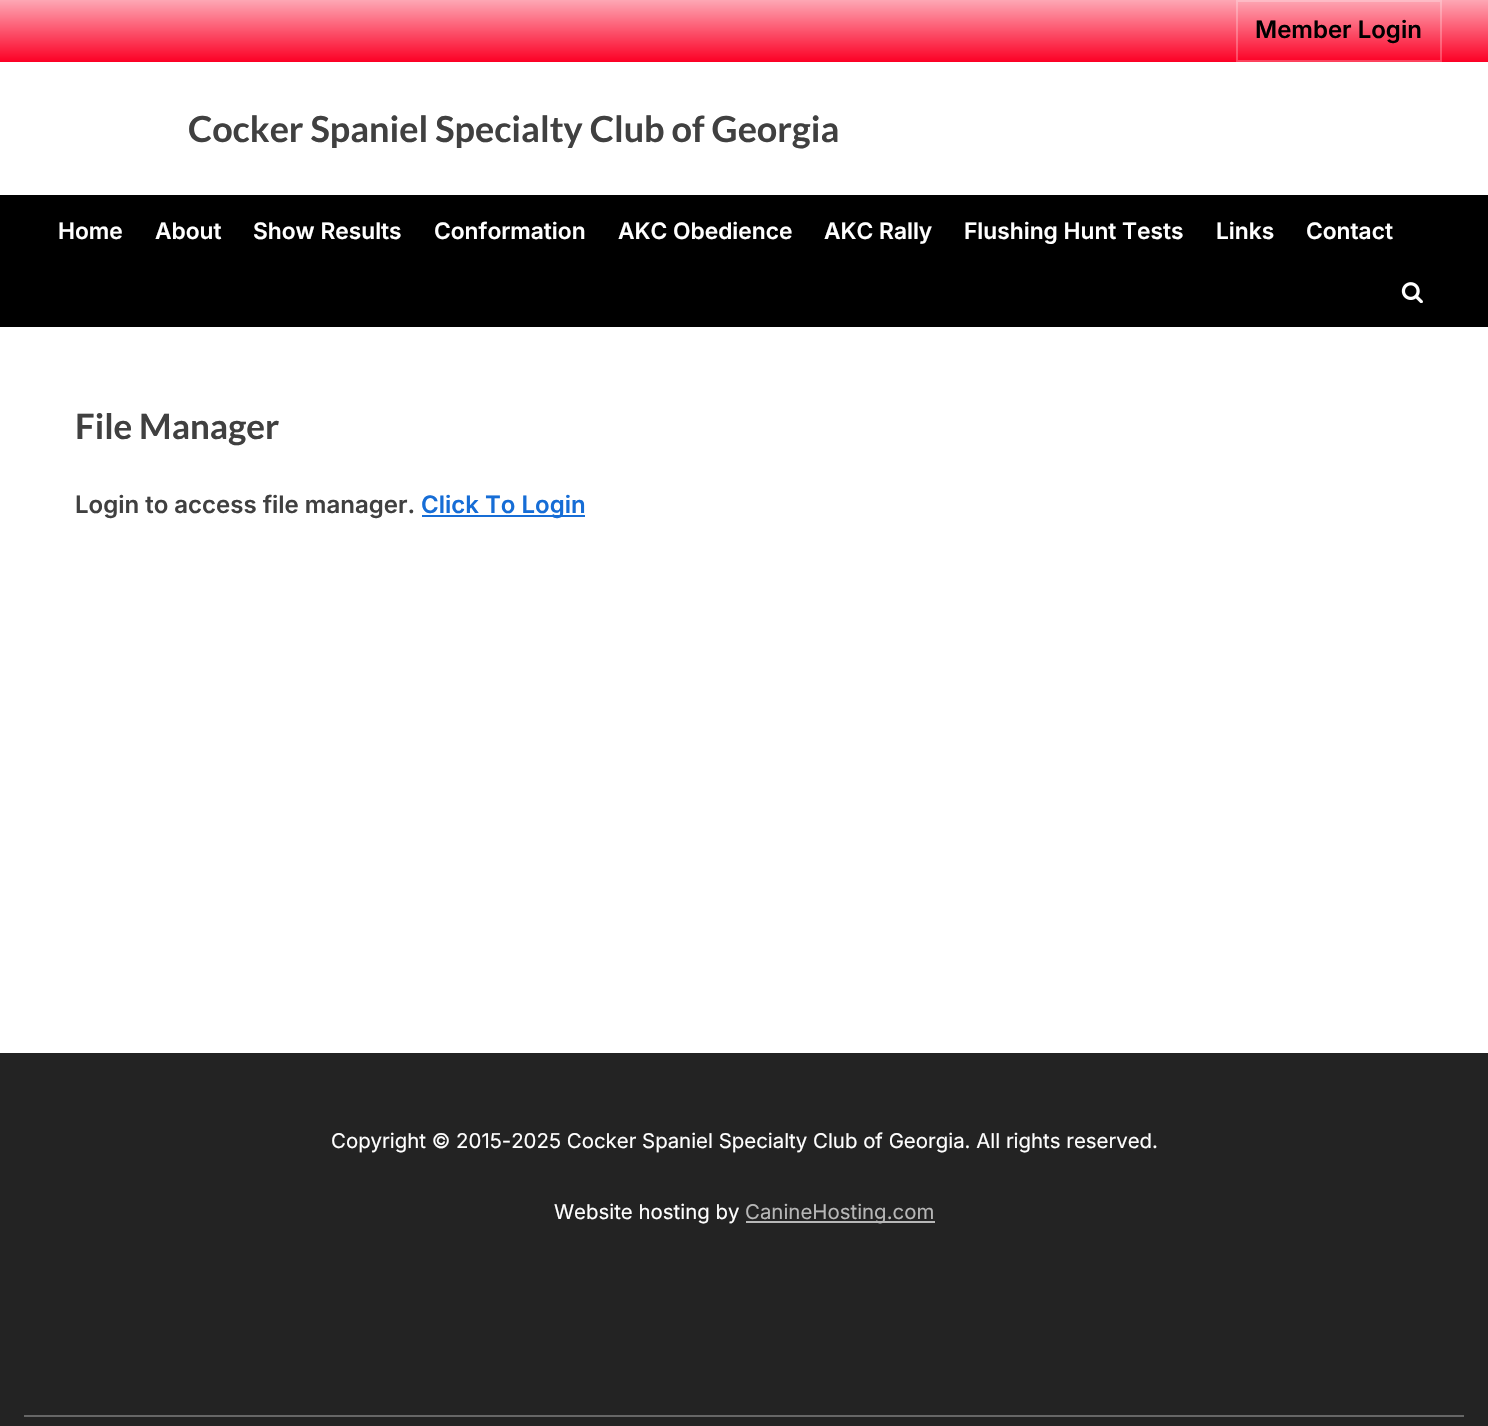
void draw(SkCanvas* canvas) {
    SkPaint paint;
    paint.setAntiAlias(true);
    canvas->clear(0xFFFFFFFF);
    {
        const SkColor colors[] = {0xFFFC0025, 0xFFFDA7B4};
        const float stops[] = {0, 1};
        const SkPoint ends[] = {{744, 62}, {744, 0}};
        paint.setShader(SkGradientShader::MakeLinear(ends, colors, stops, 2, SkTileMode::kClamp));
        paint.setAlpha(255);
    }
    canvas->drawRect(SkRect::MakeXYWH(0, 0, 1488, 62), paint);
    paint.setStyle(SkPaint::kStroke_Style);
    paint.setStrokeWidth(2);
    paint.setShader(nullptr);
    paint.setColor(0x40FFFFFF);
    canvas->drawRect(SkRect::MakeXYWH(1237, 1, 204, 60), paint);
    SkFont font1(fontMgr->matchFamilyStyle("Inter", SkFontStyle(600, SkFontStyle::kNormal_Width, SkFontStyle::kUpright_Slant)), 24);
    font1.setSubpixel(true);
    paint.setStyle(SkPaint::kFill_Style);
    paint.setColor(0xFF000000);
    canvas->drawString("Member Login", 1255, 38, font1, paint);
    SkFont font2(fontMgr->matchFamilyStyle("Lato", SkFontStyle::Bold()), 36);
    font2.setSubpixel(true);
    paint.setColor(0xFF404040);
    canvas->drawString("Cocker Spaniel Specialty Club of Georgia", 188, 142, font2, paint);
    paint.setColor(0xFF000000);
    canvas->drawRect(SkRect::MakeXYWH(0, 195, 1488, 132), paint);
    SkFont font3(fontMgr->matchFamilyStyle("Inter", SkFontStyle(600, SkFontStyle::kNormal_Width, SkFontStyle::kUpright_Slant)), 22.75f);
    font3.setSubpixel(true);
    paint.setColor(0xFFFFFFFF);
    canvas->drawString("Home", 58, 239, font3, paint);
    canvas->drawString("About", 155, 239, font3, paint);
    canvas->drawString("Show Results", 253, 239, font3, paint);
    canvas->drawString("Conformation", 434, 239, font3, paint);
    canvas->drawString("AKC Obedience", 618, 239, font3, paint);
    canvas->drawString("AKC Rally", 824, 239, font3, paint);
    canvas->drawString("Flushing Hunt Tests", 964, 239, font3, paint);
    canvas->drawString("Links", 1216, 239, font3, paint);
    canvas->drawString("Contact", 1306, 239, font3, paint);
    canvas->drawImageRect(SkImages::DeferredFromEncodedData(SkData::MakeFromFileName("img1.png")), SkRect::MakeXYWH(1401, 282, 22, 21), SkSamplingOptions());
    SkFont font4(fontMgr->matchFamilyStyle("Lato", SkFontStyle::Bold()), 35);
    font4.setSubpixel(true);
    paint.setColor(0xFF404040);
    canvas->drawString("File Manager", 75, 439, font4, paint);
    canvas->drawString("Login to access file manager.", 75, 513, font1, paint);
    paint.setColor(0xFF166DD6);
    canvas->drawRect(SkRect::MakeXYWH(422, 515, 163, 2), paint);
    canvas->drawString("Click To Login", 421, 513, font1, paint);
    paint.setColor(0xFF232323);
    canvas->drawRect(SkRect::MakeXYWH(0, 1053, 1488, 373), paint);
    paint.setColor(0xFF666666);
    canvas->drawRect(SkRect::MakeXYWH(24, 1415, 1440, 2), paint);
    SkFont font5(fontMgr->matchFamilyStyle("Inter", SkFontStyle::Normal()), 20.4f);
    font5.setSubpixel(true);
    paint.setColor(0xFFFFFFFF);
    canvas->drawString("Copyright © 2015-2025 Cocker Spaniel Specialty Club of Georgia. All rights reserved.", 331, 1148, font5, paint);
    canvas->drawString("Website hosting by", 554, 1219, font5, paint);
    paint.setColor(0xFFB7B7B7);
    canvas->drawRect(SkRect::MakeXYWH(746, 1221, 189, 2), paint);
    canvas->drawString("CanineHosting.com", 745, 1219, font5, paint);
}
